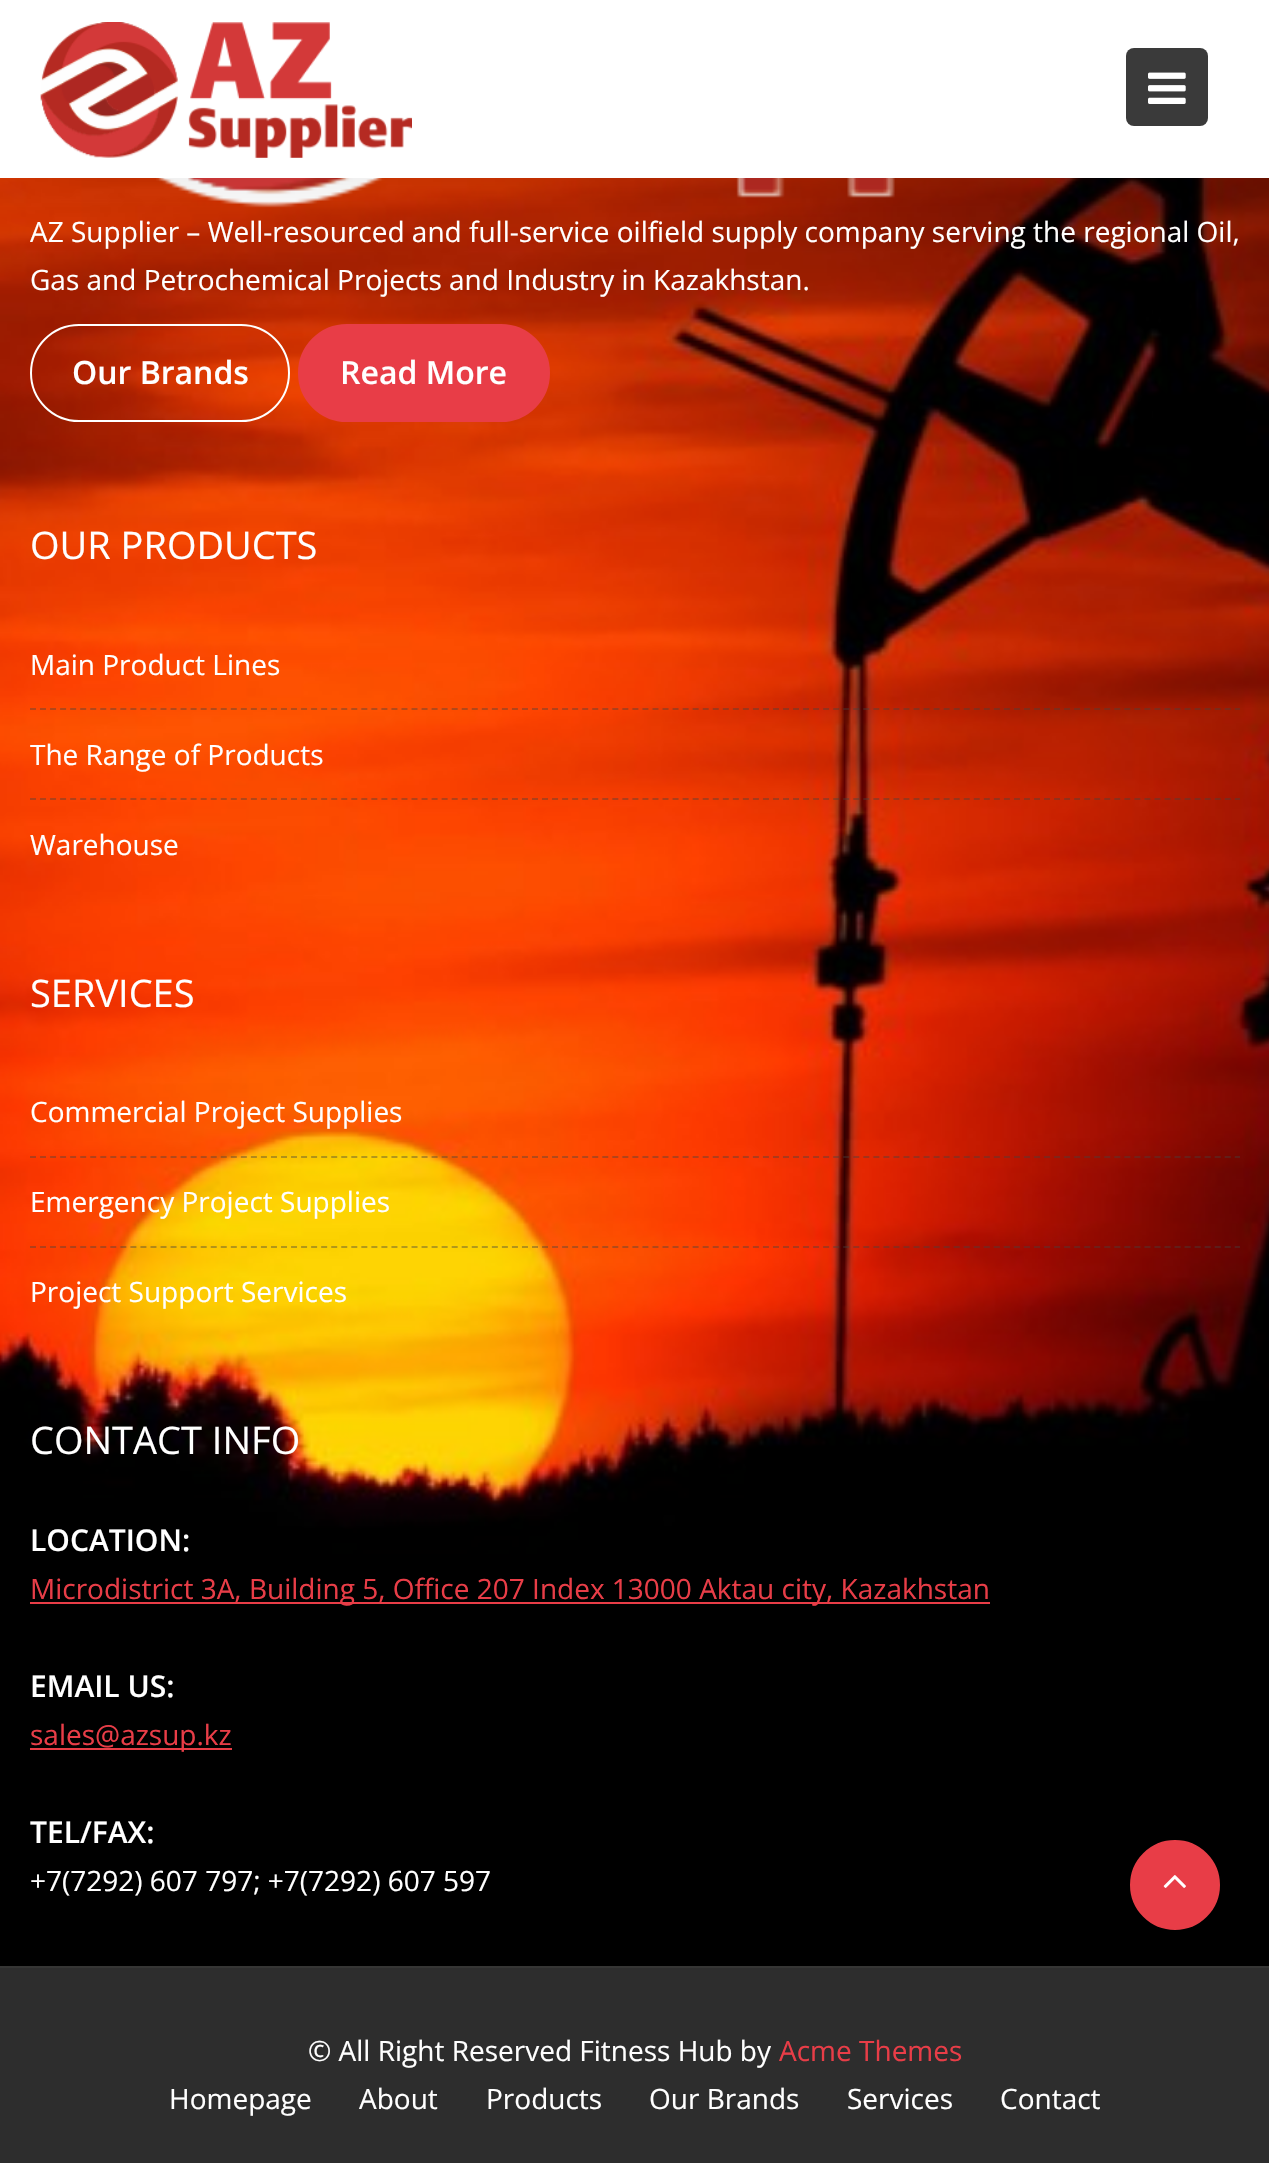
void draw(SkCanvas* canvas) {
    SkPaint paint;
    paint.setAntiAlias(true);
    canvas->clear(0xFFFFFFFF);
    canvas->drawImageRect(SkImages::DeferredFromEncodedData(SkData::MakeFromFileName("img3.png")), SkRect::MakeXYWH(0, 178, 1269, 1788), SkSamplingOptions());
    canvas->drawImageRect(SkImages::DeferredFromEncodedData(SkData::MakeFromFileName("img4.png")), SkRect::MakeXYWH(156, 178, 739, 30), SkSamplingOptions());
    paint.setColor(0x1A000000);
    paint.setMaskFilter(SkMaskFilter::MakeBlur(kNormal_SkBlurStyle, 40));
    canvas->drawRect(SkRect::MakeXYWH(0, 0, 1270, 178), paint);
    paint.setMaskFilter(nullptr);
    paint.setColor(0xFFFFFFFF);
    canvas->drawRect(SkRect::MakeXYWH(0, 0, 1269, 178), paint);
    canvas->drawImageRect(SkImages::DeferredFromEncodedData(SkData::MakeFromFileName("img1.png")), SkRect::MakeXYWH(40, 22, 372, 136), SkSamplingOptions());
    paint.setColor(0xFF3A3A3A);
    canvas->drawRoundRect(SkRect::MakeXYWH(1126, 48, 82, 78), 8, 8, paint);
    canvas->drawImageRect(SkImages::DeferredFromEncodedData(SkData::MakeFromFileName("img2.png")), SkRect::MakeXYWH(1148, 72, 38, 32), SkSamplingOptions());
    SkFont font1(fontMgr->matchFamilyStyle("Open Sans", SkFontStyle::Normal()), 28);
    font1.setSubpixel(true);
    paint.setColor(0xFFFFFFFF);
    canvas->drawString("AZ Supplier – Well-resourced and full-service oilfield supply company serving the regional Oil,", 30, 242, font1, paint);
    canvas->drawString("Gas and Petrochemical Projects and Industry in Kazakhstan.", 30, 290, font1, paint);
    paint.setStyle(SkPaint::kStroke_Style);
    paint.setStrokeWidth(2);
    canvas->drawRoundRect(SkRect::MakeXYWH(31, 325, 258, 96), 48, 48, paint);
    SkFont font2(fontMgr->matchFamilyStyle("Open Sans", SkFontStyle(600, SkFontStyle::kNormal_Width, SkFontStyle::kUpright_Slant)), 32);
    font2.setSubpixel(true);
    paint.setStyle(SkPaint::kFill_Style);
    canvas->drawString("Our Brands", 72, 384, font2, paint);
    paint.setColor(0xFFE83D47);
    canvas->drawRoundRect(SkRect::MakeXYWH(299, 325, 250, 96), 48, 48, paint);
    paint.setStyle(SkPaint::kStroke_Style);
    canvas->drawRoundRect(SkRect::MakeXYWH(299, 325, 250, 96), 48, 48, paint);
    paint.setStyle(SkPaint::kFill_Style);
    paint.setColor(0xFFFFFFFF);
    canvas->drawString("Read More", 340, 384, font2, paint);
    SkFont font3(fontMgr->matchFamilyStyle("Open Sans", SkFontStyle::Normal()), 38);
    font3.setSubpixel(true);
    canvas->drawString("OUR PRODUCTS", 30, 559, font3, paint);
    paint.setStyle(SkPaint::kStroke_Style);
    paint.setColor(0x6640403E);
    paint.setPathEffect(SkDashPathEffect::Make({{6, 4.04f}}, 0));
    canvas->drawPath(SkPathBuilder().moveTo(30, 709).lineTo(1240, 709).detach(), paint);
    paint.setPathEffect(nullptr);
    paint.setStyle(SkPaint::kFill_Style);
    paint.setColor(0xFFFFFFFF);
    canvas->drawString("Main Product Lines", 30, 675, font1, paint);
    paint.setStyle(SkPaint::kStroke_Style);
    paint.setColor(0x6640403E);
    paint.setPathEffect(SkDashPathEffect::Make({{6, 4.04f}}, 0));
    canvas->drawPath(SkPathBuilder().moveTo(30, 799).lineTo(1240, 799).detach(), paint);
    paint.setPathEffect(nullptr);
    paint.setStyle(SkPaint::kFill_Style);
    paint.setColor(0xFFFFFFFF);
    canvas->drawString("The Range of Products", 30, 765, font1, paint);
    canvas->drawString("Warehouse", 30, 855, font1, paint);
    canvas->drawString("SERVICES", 30, 1007, font3, paint);
    paint.setStyle(SkPaint::kStroke_Style);
    paint.setColor(0x6640403E);
    paint.setPathEffect(SkDashPathEffect::Make({{6, 4.04f}}, 0));
    canvas->drawPath(SkPathBuilder().moveTo(30, 1157).lineTo(1240, 1157).detach(), paint);
    paint.setPathEffect(nullptr);
    paint.setStyle(SkPaint::kFill_Style);
    paint.setColor(0xFFFFFFFF);
    canvas->drawString("Commercial Project Supplies", 30, 1122, font1, paint);
    paint.setStyle(SkPaint::kStroke_Style);
    paint.setColor(0x6640403E);
    paint.setPathEffect(SkDashPathEffect::Make({{6, 4.04f}}, 0));
    canvas->drawPath(SkPathBuilder().moveTo(30, 1247).lineTo(1240, 1247).detach(), paint);
    paint.setPathEffect(nullptr);
    paint.setStyle(SkPaint::kFill_Style);
    paint.setColor(0xFFFFFFFF);
    canvas->drawString("Emergency Project Supplies", 30, 1212, font1, paint);
    canvas->drawString("Project Support Services", 30, 1302, font1, paint);
    canvas->drawString("CONTACT INFO", 30, 1454, font3, paint);
    SkFont font4(fontMgr->matchFamilyStyle("Open Sans", SkFontStyle(600, SkFontStyle::kNormal_Width, SkFontStyle::kUpright_Slant)), 30);
    font4.setSubpixel(true);
    canvas->drawString("LOCATION:", 30, 1551, font4, paint);
    paint.setColor(0xFFE83D47);
    canvas->drawRect(SkRect::MakeXYWH(30, 1602, 960, 2), paint);
    canvas->drawString("Microdistrict 3A, Building 5, Office 207 Index 13000 Aktau city, Kazakhstan", 30, 1599, font1, paint);
    paint.setColor(0xFFFFFFFF);
    canvas->drawString("EMAIL US:", 30, 1697, font4, paint);
    paint.setColor(0xFFE83D47);
    canvas->drawRect(SkRect::MakeXYWH(30, 1748, 202, 2), paint);
    canvas->drawString("sales@azsup.kz", 30, 1745, font1, paint);
    paint.setColor(0xFFFFFFFF);
    canvas->drawString("TEL/FAX:", 30, 1843, font4, paint);
    canvas->drawString("+7(7292) 607 797; +7(7292) 607 597", 30, 1891, font1, paint);
    paint.setColor(0xFF2D2D2D);
    canvas->drawRect(SkRect::MakeXYWH(0, 1968, 1269, 195), paint);
    paint.setColor(0xFF353534);
    canvas->drawRect(SkRect::MakeXYWH(0, 1966, 1269, 2), paint);
    paint.setColor(0xFFE83D47);
    canvas->drawCircle(1175, 1885, 44, paint);
    paint.setStyle(SkPaint::kStroke_Style);
    canvas->drawCircle(1175, 1885, 44, paint);
    canvas->drawImageRect(SkImages::DeferredFromEncodedData(SkData::MakeFromFileName("img5.png")), SkRect::MakeXYWH(1163, 1875, 23, 13), SkSamplingOptions());
    paint.setStyle(SkPaint::kFill_Style);
    paint.setColor(0xFFFFFFFF);
    canvas->drawString("© All Right Reserved Fitness Hub by", 308, 2061, font1, paint);
    paint.setColor(0xFFE83D47);
    canvas->drawString("Acme Themes", 779, 2061, font1, paint);
    paint.setColor(0xFFFFFFFF);
    canvas->drawString("Homepage", 169, 2109, font1, paint);
    canvas->drawString("About", 359, 2109, font1, paint);
    canvas->drawString("Products", 486, 2109, font1, paint);
    canvas->drawString("Our Brands", 649, 2109, font1, paint);
    canvas->drawString("Services", 847, 2109, font1, paint);
    canvas->drawString("Contact", 1000, 2109, font1, paint);
}
